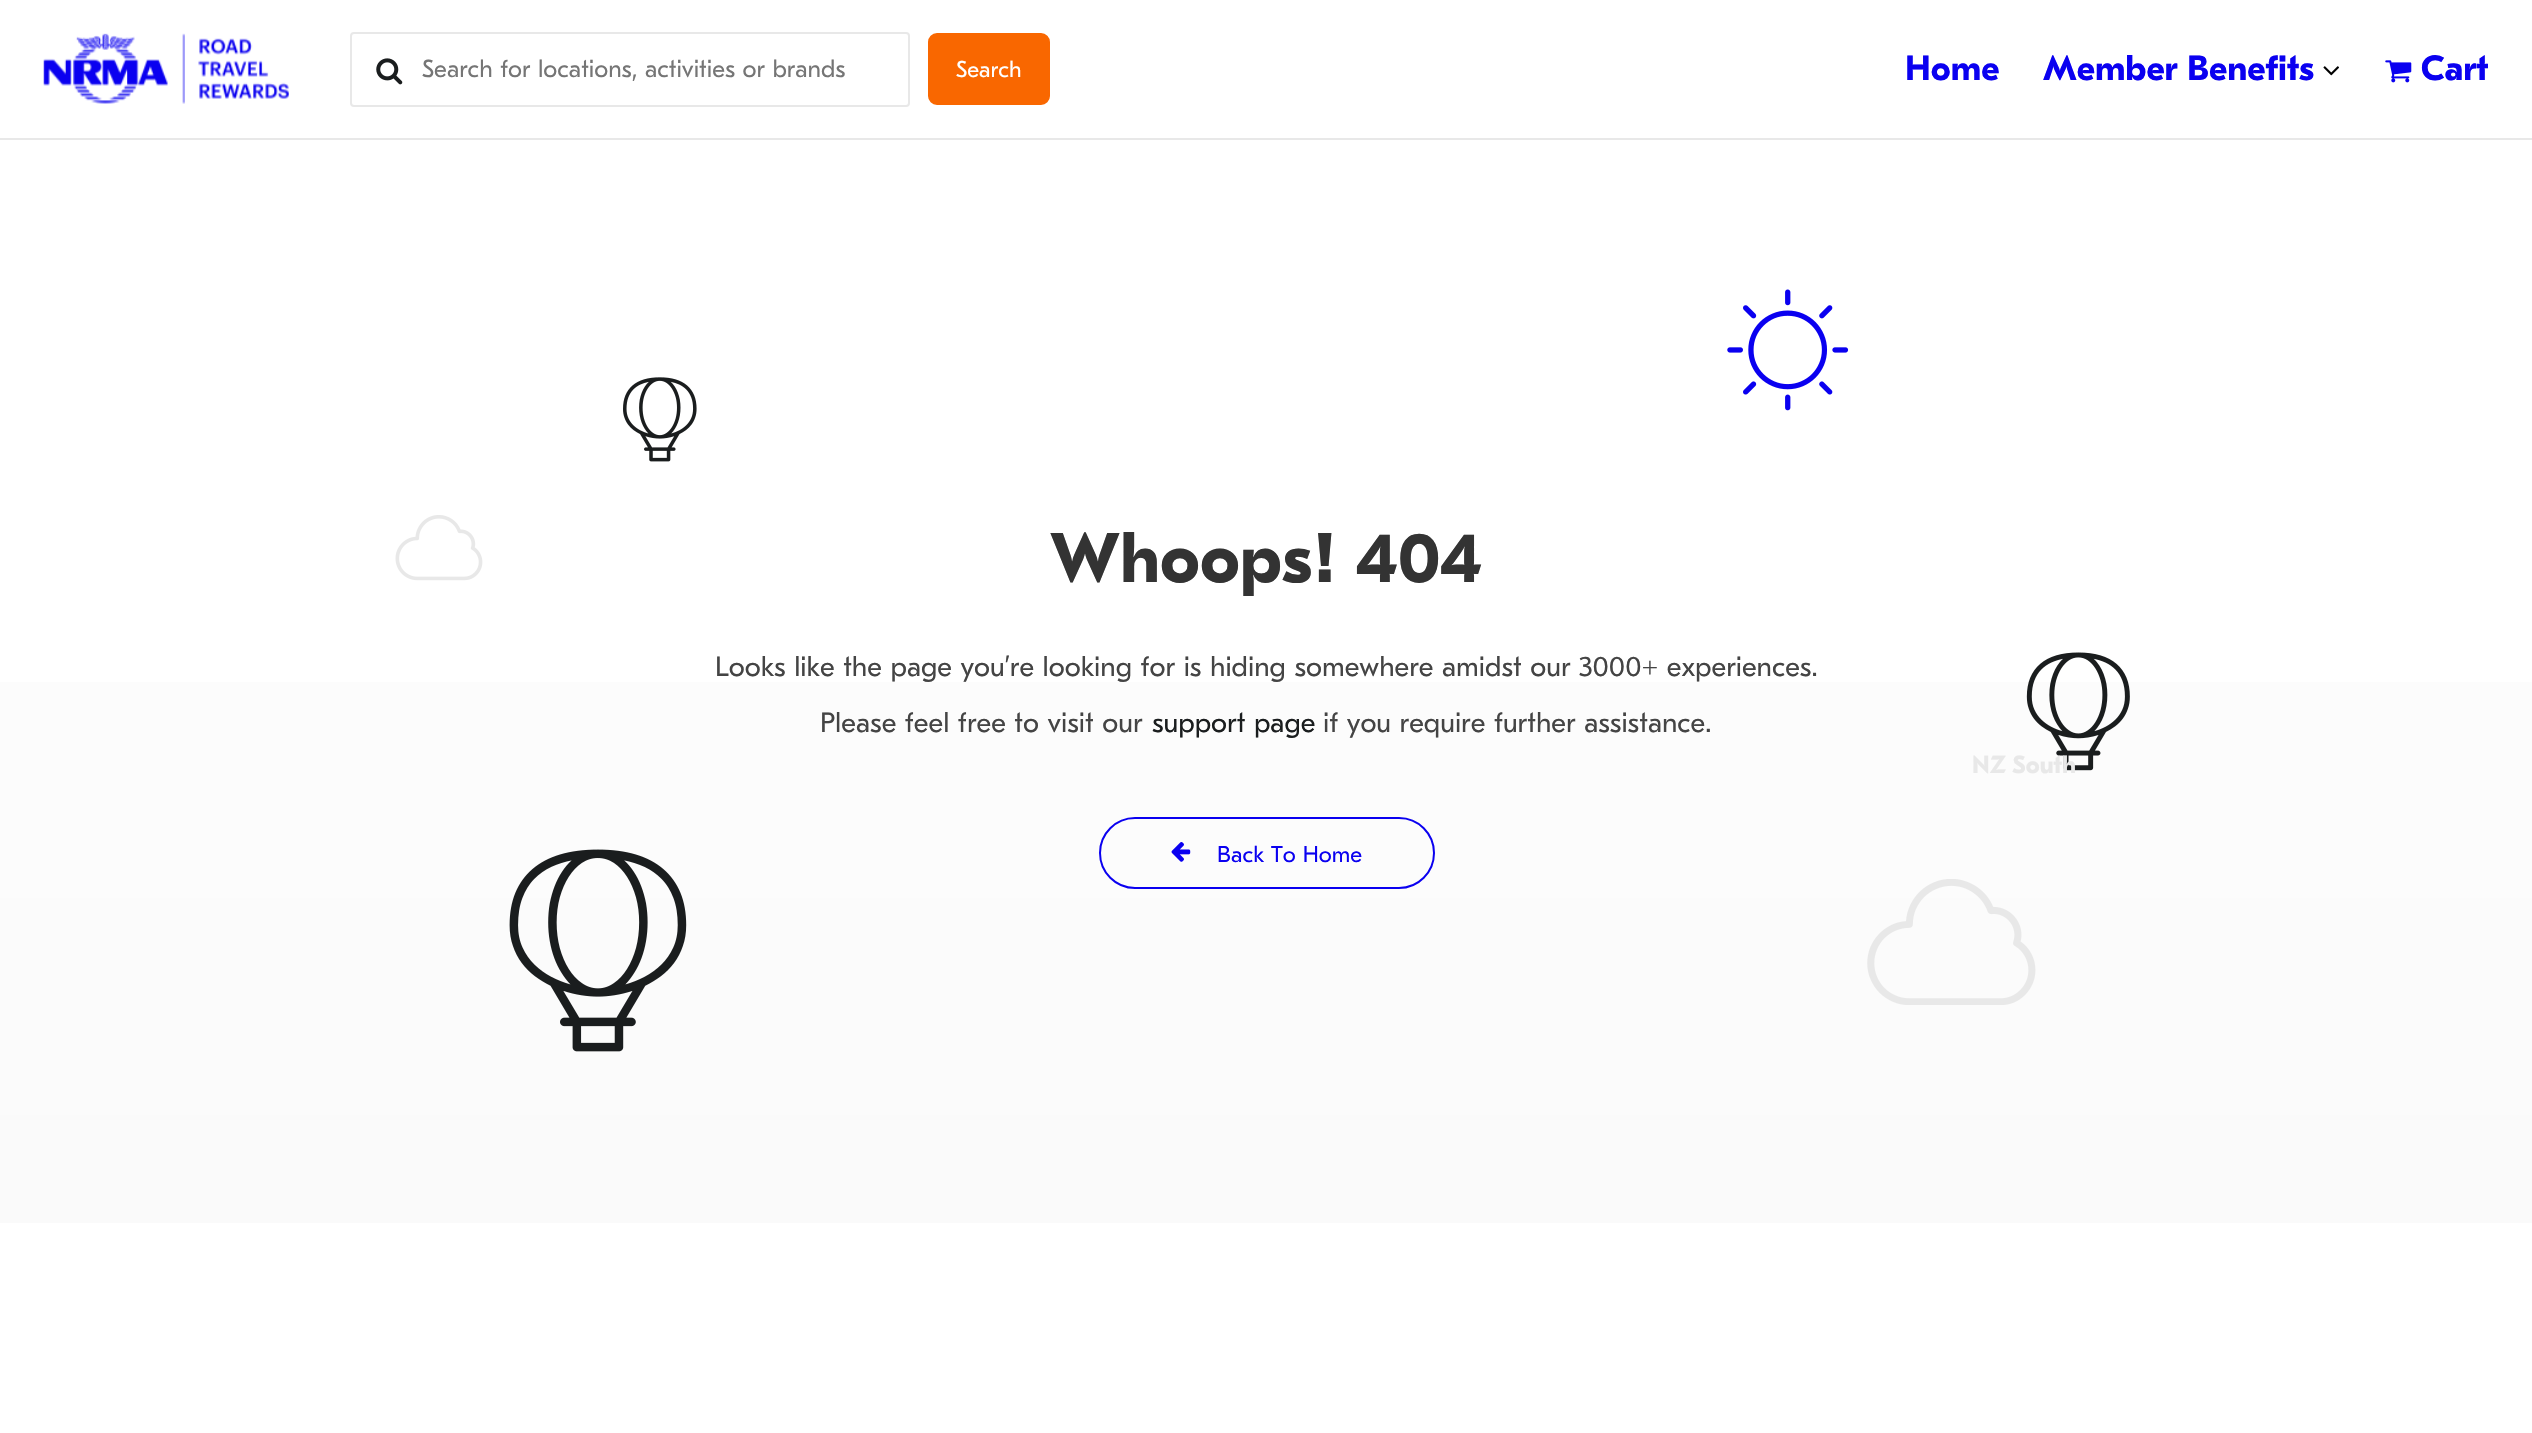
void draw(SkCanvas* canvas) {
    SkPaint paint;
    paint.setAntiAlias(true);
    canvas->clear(0xFFFFFFFF);
    paint.setColor(0xFFE8E8E8);
    canvas->drawRect(SkRect::MakeXYWH(0, 138, 2532, 2), paint);
    canvas->drawImageRect(SkImages::DeferredFromEncodedData(SkData::MakeFromFileName("img1.png")), SkRect::MakeXYWH(43, 33, 246, 71), SkSamplingOptions());
    paint.setStyle(SkPaint::kStroke_Style);
    paint.setStrokeWidth(2);
    canvas->drawRoundRect(SkRect::MakeXYWH(351, 33, 558, 73), 3, 3, paint);
    canvas->drawImageRect(SkImages::DeferredFromEncodedData(SkData::MakeFromFileName("img2.png")), SkRect::MakeXYWH(376, 58, 27, 27), SkSamplingOptions());
    SkFont font1(fontMgr->matchFamilyStyle("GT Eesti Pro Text", SkFontStyle::Normal()), 24.5f);
    font1.setSubpixel(true);
    paint.setStyle(SkPaint::kFill_Style);
    paint.setColor(0xFF757575);
    canvas->drawString("Search for locations, activities or brands", 422, 77, font1, paint);
    paint.setColor(0xFFF96700);
    canvas->drawRoundRect(SkRect::MakeXYWH(929, 34, 120, 70), 8, 8, paint);
    paint.setStyle(SkPaint::kStroke_Style);
    canvas->drawRoundRect(SkRect::MakeXYWH(929, 34, 120, 70), 8, 8, paint);
    SkFont font2(fontMgr->matchFamilyStyle("GT Eesti Pro Text", SkFontStyle::Normal()), 22.75f);
    font2.setSubpixel(true);
    paint.setStyle(SkPaint::kFill_Style);
    paint.setColor(0xFFFFFFFF);
    canvas->drawString("Search", 956, 77, font2, paint);
    SkFont font3(fontMgr->matchFamilyStyle("GT Eesti Pro Text", SkFontStyle::Bold()), 35);
    font3.setSubpixel(true);
    paint.setColor(0xFF0A00F0);
    canvas->drawString("Home", 1905, 80, font3, paint);
    canvas->drawString("Member Benefits", 2043, 80, font3, paint);
    canvas->drawImageRect(SkImages::DeferredFromEncodedData(SkData::MakeFromFileName("img3.png")), SkRect::MakeXYWH(2323, 66, 16, 10), SkSamplingOptions());
    {
        const SkColor colors[] = {0xFFFFFFFF, 0xFFFAFAFA};
        const float stops[] = {0, 1};
        const SkPoint ends[] = {{1266, 140}, {1266, 1223}};
        paint.setShader(SkGradientShader::MakeLinear(ends, colors, stops, 2, SkTileMode::kClamp));
        paint.setAlpha(255);
    }
    canvas->drawRect(SkRect::MakeXYWH(0, 682, 2532, 541), paint);
    canvas->drawImageRect(SkImages::DeferredFromEncodedData(SkData::MakeFromFileName("img8.png")), SkRect::MakeXYWH(2026, 652, 104, 119), SkSamplingOptions());
    SkFont font4(fontMgr->matchFamilyStyle("GT Eesti Pro Text", SkFontStyle::Bold()), 24.5f);
    font4.setSubpixel(true);
    paint.setShader(nullptr);
    paint.setColor(0xFFE8E8E8);
    canvas->drawString("NZ South", 1972, 773, font4, paint);
    canvas->drawImageRect(SkImages::DeferredFromEncodedData(SkData::MakeFromFileName("img4.png")), SkRect::MakeXYWH(2385, 60, 27, 23), SkSamplingOptions());
    paint.setColor(0xFF0A00F0);
    canvas->drawString("Cart", 2421, 80, font3, paint);
    canvas->drawImageRect(SkImages::DeferredFromEncodedData(SkData::MakeFromFileName("img5.png")), SkRect::MakeXYWH(1727, 289, 122, 122), SkSamplingOptions());
    canvas->drawImageRect(SkImages::DeferredFromEncodedData(SkData::MakeFromFileName("img6.png")), SkRect::MakeXYWH(623, 377, 74, 85), SkSamplingOptions());
    canvas->drawImageRect(SkImages::DeferredFromEncodedData(SkData::MakeFromFileName("img7.png")), SkRect::MakeXYWH(395, 515, 88, 66), SkSamplingOptions());
    canvas->drawImageRect(SkImages::DeferredFromEncodedData(SkData::MakeFromFileName("img9.png")), SkRect::MakeXYWH(509, 849, 178, 203), SkSamplingOptions());
    canvas->drawImageRect(SkImages::DeferredFromEncodedData(SkData::MakeFromFileName("img10.png")), SkRect::MakeXYWH(1867, 879, 169, 126), SkSamplingOptions());
    SkFont font5(fontMgr->matchFamilyStyle("GT Eesti Pro Text", SkFontStyle::Bold()), 70);
    font5.setSubpixel(true);
    paint.setColor(0xFF333333);
    canvas->drawString("Whoops! 404", 1050, 582, font5, paint);
    SkFont font6(fontMgr->matchFamilyStyle("GT Eesti Pro Text", SkFontStyle::Normal()), 28);
    font6.setSubpixel(true);
    paint.setColor(0xFF444444);
    canvas->drawString("Looks like the page you’re looking for is hiding somewhere amidst our 3000+ experiences.", 715, 676, font6, paint);
    canvas->drawString("Please feel free to visit our", 820, 732, font6, paint);
    paint.setColor(0xFF1A1D1E);
    canvas->drawString("support page", 1152, 732, font6, paint);
    paint.setColor(0xFF444444);
    canvas->drawString("if you require further assistance.", 1323, 732, font6, paint);
    paint.setStyle(SkPaint::kStroke_Style);
    paint.setColor(0xFF0A00F0);
    canvas->drawRoundRect(SkRect::MakeXYWH(1100, 818, 334, 70), 35, 35, paint);
    canvas->drawImageRect(SkImages::DeferredFromEncodedData(SkData::MakeFromFileName("img11.png")), SkRect::MakeXYWH(1171, 842, 20, 20), SkSamplingOptions());
    paint.setStyle(SkPaint::kFill_Style);
    canvas->drawString("Back To Home", 1217, 862, font2, paint);
}
